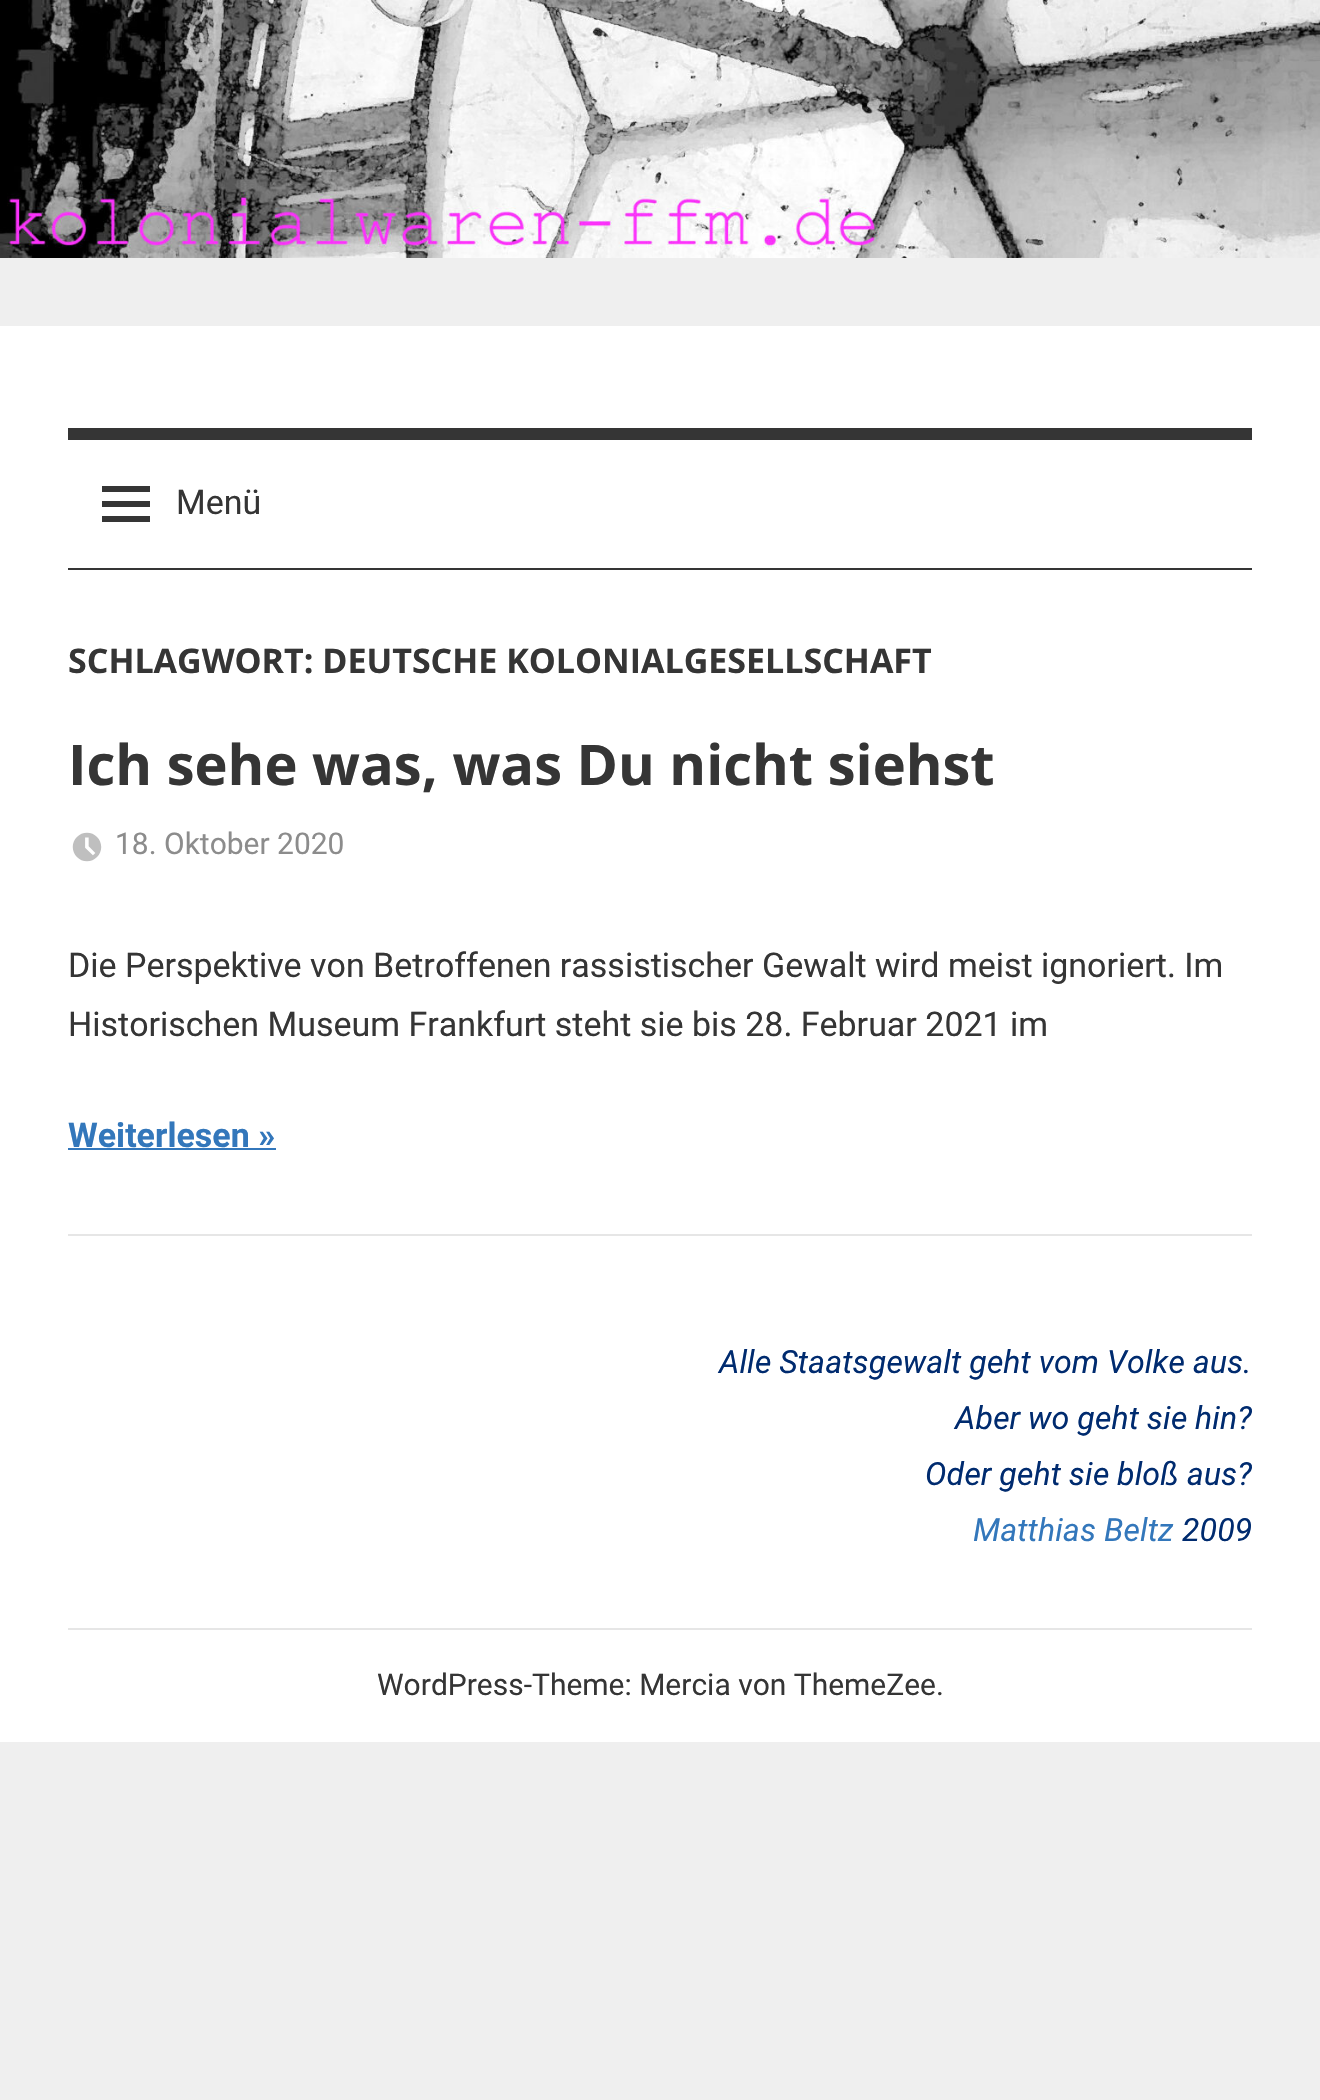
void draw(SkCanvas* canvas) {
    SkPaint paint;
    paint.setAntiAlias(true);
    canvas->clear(0xFFEFEFEF);
    canvas->drawImageRect(SkImages::DeferredFromEncodedData(SkData::MakeFromFileName("img1.png")), SkRect::MakeXYWH(0, 0, 1320, 258), SkSamplingOptions());
    paint.setColor(0xFFFFFFFF);
    canvas->drawRect(SkRect::MakeXYWH(0, 326, 1320, 1416), paint);
    paint.setColor(0xFF353535);
    canvas->drawRect(SkRect::MakeXYWH(68, 428, 1184, 12), paint);
    canvas->drawRect(SkRect::MakeXYWH(68, 568, 1184, 2), paint);
    canvas->drawImageRect(SkImages::DeferredFromEncodedData(SkData::MakeFromFileName("img2.png")), SkRect::MakeXYWH(102, 486, 48, 36), SkSamplingOptions());
    SkFont font1(fontMgr->matchFamilyStyle("Roboto", SkFontStyle::Normal()), 34);
    font1.setSubpixel(true);
    canvas->drawString("Menü", 176, 514, font1, paint);
    SkFont font2(fontMgr->matchFamilyStyle("Open Sans", SkFontStyle::Bold()), 34);
    font2.setSubpixel(true);
    canvas->drawString("SCHLAGWORT: DEUTSCHE KOLONIALGESELLSCHAFT", 68, 673, font2, paint);
    SkFont font3(fontMgr->matchFamilyStyle("Open Sans", SkFontStyle::Bold()), 56);
    font3.setSubpixel(true);
    canvas->drawString("Ich sehe was, was Du nicht siehst", 68, 785, font3, paint);
    canvas->drawImageRect(SkImages::DeferredFromEncodedData(SkData::MakeFromFileName("img3.png")), SkRect::MakeXYWH(72, 832, 30, 30), SkSamplingOptions());
    SkFont font4(fontMgr->matchFamilyStyle("Roboto", SkFontStyle::Normal()), 30);
    font4.setSubpixel(true);
    paint.setColor(0xFF8C8C8C);
    canvas->drawString("18. Oktober 2020", 115, 854, font4, paint);
    paint.setColor(0xFF353535);
    canvas->drawString("Die Perspektive von Betroffenen rassistischer Gewalt wird meist ignoriert. Im", 68, 977, font1, paint);
    canvas->drawString("Historischen Museum Frankfurt steht sie bis 28. Februar 2021 im", 68, 1036, font1, paint);
    SkFont font5(fontMgr->matchFamilyStyle("Roboto", SkFontStyle::Bold()), 34);
    font5.setSubpixel(true);
    paint.setColor(0xFF3377BB);
    canvas->drawString("Weiterlesen »", 68, 1147, font5, paint);
    canvas->drawRect(SkRect::MakeXYWH(68, 1148, 208, 2), paint);
    paint.setColor(0xFFE6E6E6);
    canvas->drawRect(SkRect::MakeXYWH(68, 1234, 1184, 2), paint);
    SkFont font6(fontMgr->matchFamilyStyle("Roboto", SkFontStyle::Italic()), 32);
    font6.setSubpixel(true);
    paint.setColor(0xFF002B6F);
    canvas->drawString("Alle Staatsgewalt geht vom Volke aus.", 719, 1373, font6, paint);
    canvas->drawString("Aber wo geht sie hin?", 955, 1429, font6, paint);
    canvas->drawString("Oder geht sie bloß aus?", 925, 1485, font6, paint);
    paint.setColor(0xFF3377BB);
    canvas->drawString("Matthias Beltz", 973, 1541, font6, paint);
    paint.setColor(0xFF002B6F);
    canvas->drawString("2009", 1182, 1541, font6, paint);
    paint.setColor(0xFFE6E6E6);
    canvas->drawRect(SkRect::MakeXYWH(68, 1628, 1184, 2), paint);
    paint.setColor(0xFF353535);
    canvas->drawString("WordPress-Theme: Mercia von ThemeZee.", 377, 1695, font4, paint);
}
